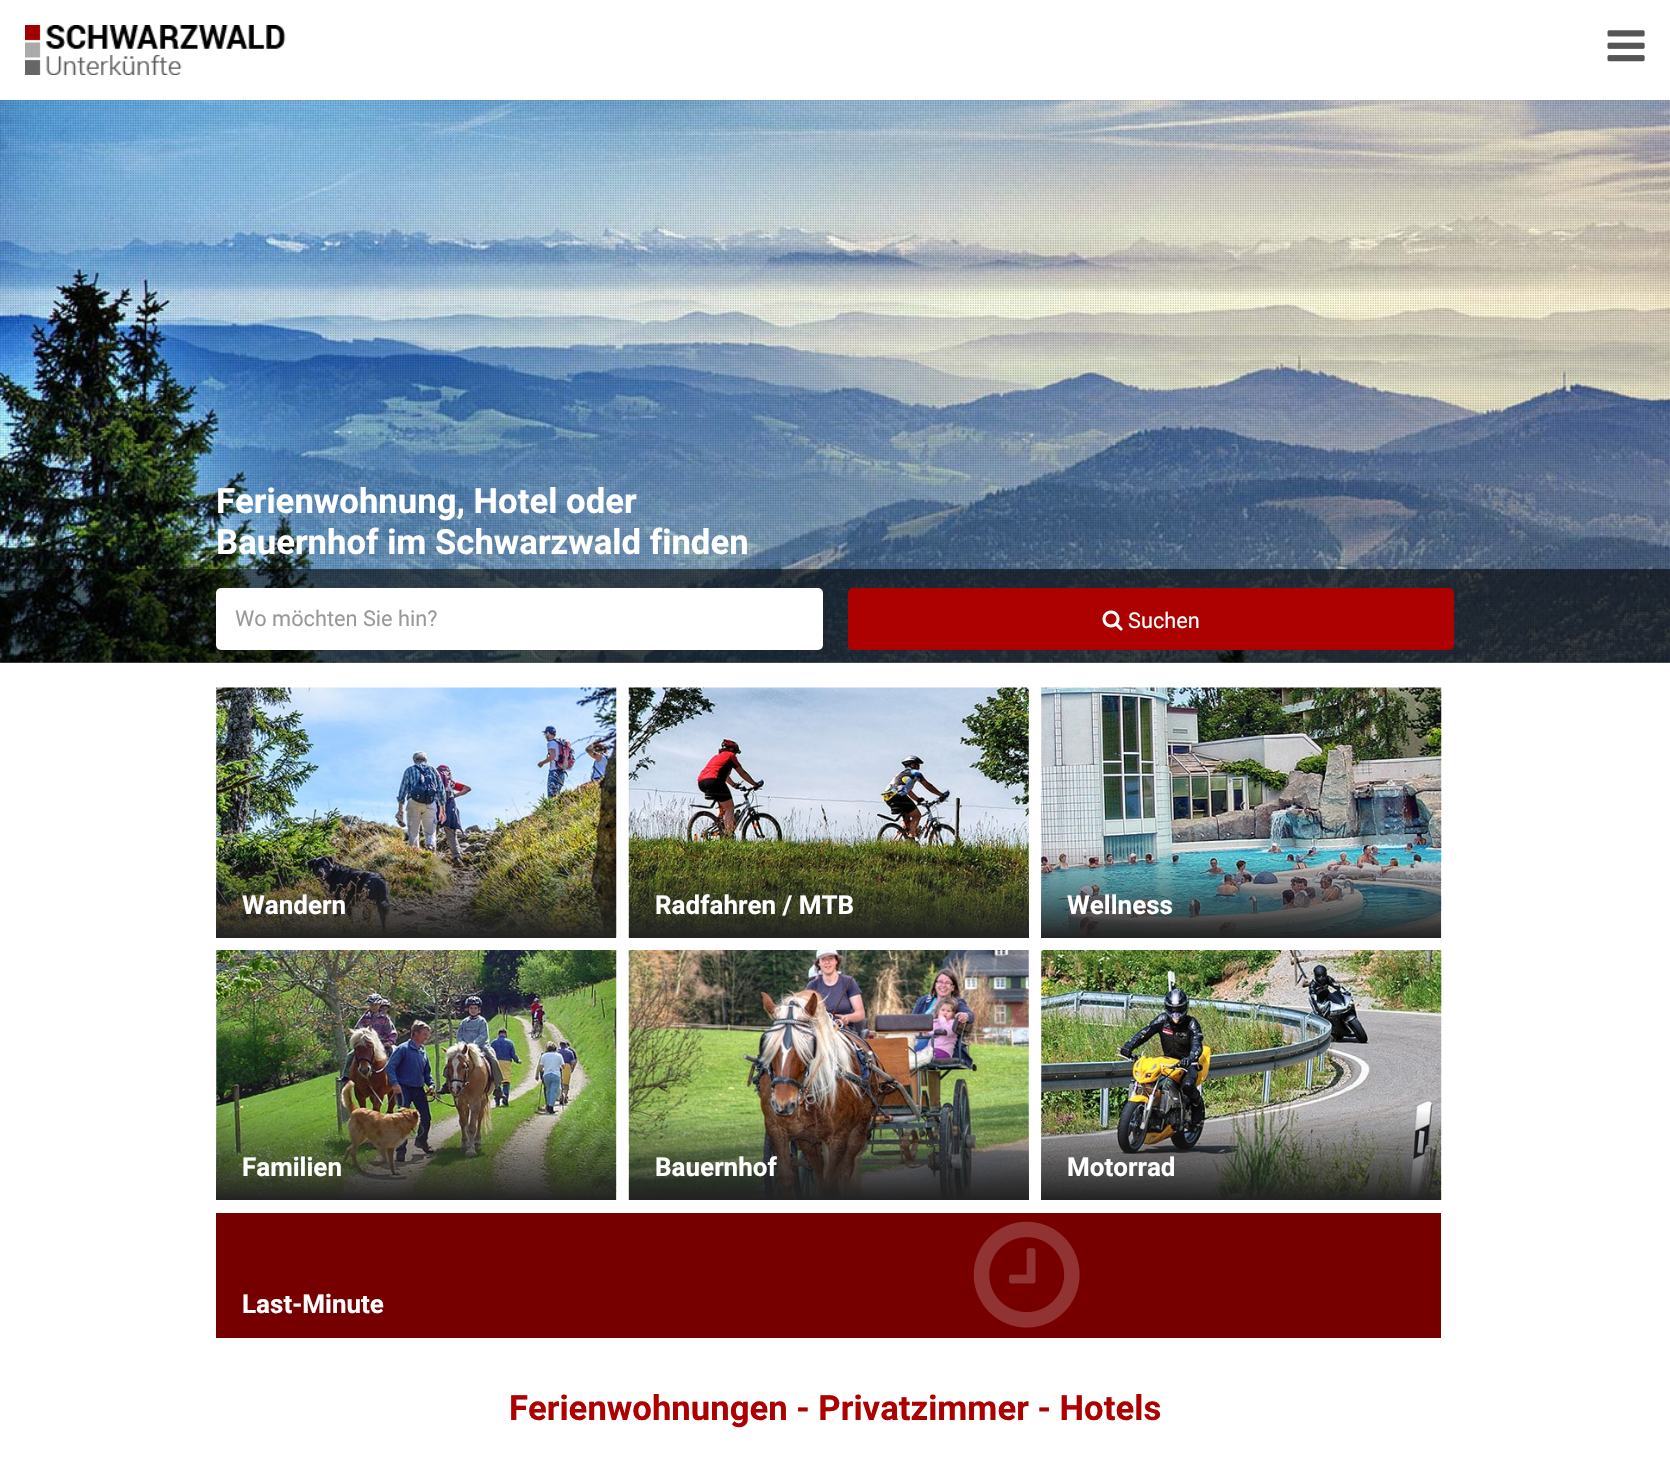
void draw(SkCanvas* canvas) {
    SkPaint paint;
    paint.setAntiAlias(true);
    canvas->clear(0xFFFFFFFF);
    canvas->drawImageRect(SkImages::DeferredFromEncodedData(SkData::MakeFromFileName("img1.png")), SkRect::MakeXYWH(25, 25, 261, 50), SkSamplingOptions());
    canvas->drawImageRect(SkImages::DeferredFromEncodedData(SkData::MakeFromFileName("img2.png")), SkRect::MakeXYWH(1607, 30, 38, 32), SkSamplingOptions());
    canvas->drawImageRect(SkImages::DeferredFromEncodedData(SkData::MakeFromFileName("img4.png")), SkRect::MakeXYWH(0, 100, 1670, 563), SkSamplingOptions());
    canvas->drawImageRect(SkImages::DeferredFromEncodedData(SkData::MakeFromFileName("img3.png")), SkRect::MakeXYWH(0, 100, 1669, 563), SkSamplingOptions());
    paint.setColor(0x99000000);
    canvas->drawRect(SkRect::MakeXYWH(0, 569, 1670, 94), paint);
    SkFont font1(fontMgr->matchFamilyStyle("Roboto", SkFontStyle::Bold()), 34.7f);
    font1.setSubpixel(true);
    paint.setColor(0xFFFFFFFF);
    canvas->drawString("Ferienwohnung, Hotel oder", 216, 513, font1, paint);
    canvas->drawString("Bauernhof im Schwarzwald finden", 216, 554, font1, paint);
    canvas->drawRoundRect(SkRect::MakeXYWH(216, 588, 607, 62), 5, 5, paint);
    SkFont font2(fontMgr->matchFamilyStyle("Roboto", SkFontStyle::Normal()), 21.75f);
    font2.setSubpixel(true);
    paint.setColor(0xFF999999);
    canvas->drawString("Wo möchten Sie hin?", 235, 626, font2, paint);
    paint.setColor(0xFFAD0000);
    canvas->drawRoundRect(SkRect::MakeXYWH(848, 588, 606, 62), 5, 5, paint);
    canvas->drawImageRect(SkImages::DeferredFromEncodedData(SkData::MakeFromFileName("img5.png")), SkRect::MakeXYWH(1102, 610, 21, 21), SkSamplingOptions());
    paint.setColor(0xFFFFFFFF);
    canvas->drawString("Suchen", 1128, 628, font2, paint);
    canvas->drawImageRect(SkImages::DeferredFromEncodedData(SkData::MakeFromFileName("img6.png")), SkRect::MakeXYWH(216, 687, 401, 251), SkSamplingOptions());
    {
        const SkColor colors[] = {0x00222222, 0xFF222222};
        const float stops[] = {0, 1};
        const SkPoint ends[] = {{416, 846}, {416, 938}};
        paint.setShader(SkGradientShader::MakeLinear(ends, colors, stops, 2, SkTileMode::kClamp));
        paint.setAlpha(255);
    }
    canvas->drawRect(SkRect::MakeXYWH(216, 848, 400, 90), paint);
    SkFont font3(fontMgr->matchFamilyStyle("Roboto", SkFontStyle::Bold()), 26);
    font3.setSubpixel(true);
    paint.setShader(nullptr);
    paint.setColor(0xFFFFFFFF);
    canvas->drawString("Wandern", 242, 914, font3, paint);
    canvas->drawImageRect(SkImages::DeferredFromEncodedData(SkData::MakeFromFileName("img7.png")), SkRect::MakeXYWH(628, 687, 401, 251), SkSamplingOptions());
    {
        const SkColor colors[] = {0x00222222, 0xFF222222};
        const float stops[] = {0, 1};
        const SkPoint ends[] = {{829, 846}, {829, 938}};
        paint.setShader(SkGradientShader::MakeLinear(ends, colors, stops, 2, SkTileMode::kClamp));
        paint.setAlpha(255);
    }
    canvas->drawRect(SkRect::MakeXYWH(629, 848, 400, 90), paint);
    paint.setShader(nullptr);
    paint.setColor(0xFFFFFFFF);
    canvas->drawString("Radfahren / MTB", 655, 914, font3, paint);
    canvas->drawImageRect(SkImages::DeferredFromEncodedData(SkData::MakeFromFileName("img8.png")), SkRect::MakeXYWH(1041, 687, 401, 251), SkSamplingOptions());
    {
        const SkColor colors[] = {0x00222222, 0xFF222222};
        const float stops[] = {0, 1};
        const SkPoint ends[] = {{1241, 846}, {1241, 938}};
        paint.setShader(SkGradientShader::MakeLinear(ends, colors, stops, 2, SkTileMode::kClamp));
        paint.setAlpha(255);
    }
    canvas->drawRect(SkRect::MakeXYWH(1041, 848, 400, 90), paint);
    paint.setShader(nullptr);
    paint.setColor(0xFFFFFFFF);
    canvas->drawString("Wellness", 1067, 914, font3, paint);
    canvas->drawImageRect(SkImages::DeferredFromEncodedData(SkData::MakeFromFileName("img9.png")), SkRect::MakeXYWH(216, 950, 401, 250), SkSamplingOptions());
    {
        const SkColor colors[] = {0x00222222, 0xFF222222};
        const float stops[] = {0, 1};
        const SkPoint ends[] = {{416, 1109}, {416, 1200}};
        paint.setShader(SkGradientShader::MakeLinear(ends, colors, stops, 2, SkTileMode::kClamp));
        paint.setAlpha(255);
    }
    canvas->drawRect(SkRect::MakeXYWH(216, 1111, 400, 89), paint);
    paint.setShader(nullptr);
    paint.setColor(0xFFFFFFFF);
    canvas->drawString("Familien", 242, 1176, font3, paint);
    canvas->drawImageRect(SkImages::DeferredFromEncodedData(SkData::MakeFromFileName("img10.png")), SkRect::MakeXYWH(628, 950, 401, 250), SkSamplingOptions());
    {
        const SkColor colors[] = {0x00222222, 0xFF222222};
        const float stops[] = {0, 1};
        const SkPoint ends[] = {{829, 1109}, {829, 1200}};
        paint.setShader(SkGradientShader::MakeLinear(ends, colors, stops, 2, SkTileMode::kClamp));
        paint.setAlpha(255);
    }
    canvas->drawRect(SkRect::MakeXYWH(629, 1111, 400, 89), paint);
    paint.setShader(nullptr);
    paint.setColor(0xFFFFFFFF);
    canvas->drawString("Bauernhof", 655, 1176, font3, paint);
    canvas->drawImageRect(SkImages::DeferredFromEncodedData(SkData::MakeFromFileName("img11.png")), SkRect::MakeXYWH(1041, 950, 401, 250), SkSamplingOptions());
    {
        const SkColor colors[] = {0x00222222, 0xFF222222};
        const float stops[] = {0, 1};
        const SkPoint ends[] = {{1241, 1109}, {1241, 1200}};
        paint.setShader(SkGradientShader::MakeLinear(ends, colors, stops, 2, SkTileMode::kClamp));
        paint.setAlpha(255);
    }
    canvas->drawRect(SkRect::MakeXYWH(1041, 1111, 400, 89), paint);
    paint.setShader(nullptr);
    paint.setColor(0xFFFFFFFF);
    canvas->drawString("Motorrad", 1067, 1176, font3, paint);
    paint.setColor(0xFF760000);
    canvas->drawRect(SkRect::MakeXYWH(216, 1213, 1225, 125), paint);
    paint.setColor(0xFFFFFFFF);
    canvas->drawString("Last-Minute", 242, 1313, font3, paint);
    canvas->drawImageRect(SkImages::DeferredFromEncodedData(SkData::MakeFromFileName("img12.png")), SkRect::MakeXYWH(973, 1221, 107, 107), SkSamplingOptions());
    paint.setColor(0xFFAD0000);
    canvas->drawString("Ferienwohnungen - Privatzimmer - Hotels", 509, 1420, font1, paint);
}
